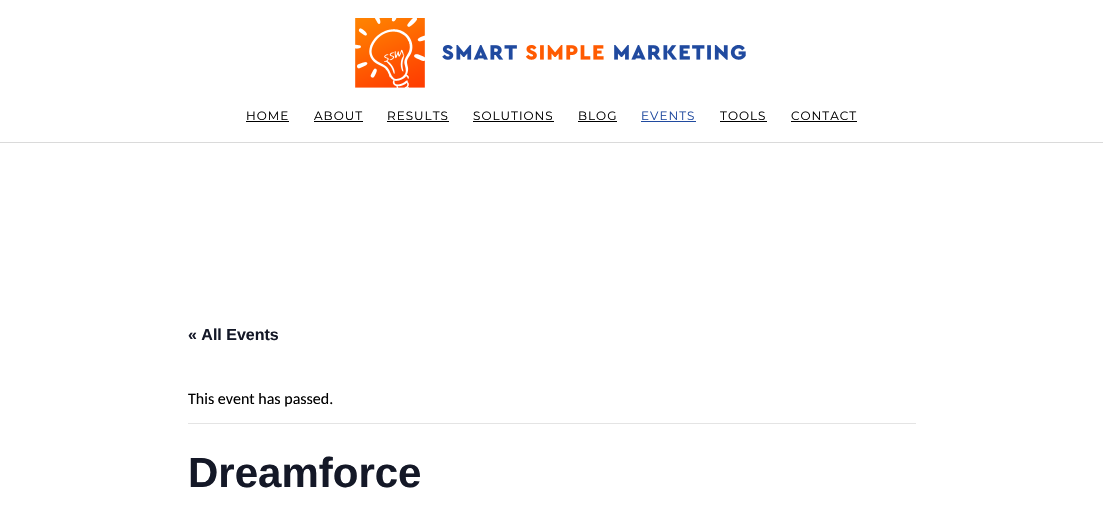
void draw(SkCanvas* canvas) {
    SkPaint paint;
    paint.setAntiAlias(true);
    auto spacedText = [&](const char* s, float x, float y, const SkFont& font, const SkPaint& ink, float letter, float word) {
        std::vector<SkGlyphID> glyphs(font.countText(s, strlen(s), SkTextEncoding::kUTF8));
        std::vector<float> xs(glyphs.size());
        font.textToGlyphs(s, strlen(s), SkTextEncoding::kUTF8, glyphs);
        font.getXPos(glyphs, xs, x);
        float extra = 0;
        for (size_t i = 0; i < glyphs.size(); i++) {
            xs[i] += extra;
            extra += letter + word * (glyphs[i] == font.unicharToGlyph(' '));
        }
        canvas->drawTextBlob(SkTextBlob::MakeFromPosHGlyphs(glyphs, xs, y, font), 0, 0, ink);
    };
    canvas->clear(0xFFFFFFFF);
    paint.setColor(0xFFDADADA);
    canvas->drawRect(SkRect::MakeXYWH(0, 142, 1103, 1), paint);
    canvas->drawImageRect(SkImages::DeferredFromEncodedData(SkData::MakeFromFileName("img1.png")), SkRect::MakeXYWH(355, 18, 391, 70), SkSamplingOptions());
    SkFont font1(fontMgr->matchFamilyStyle("Montserrat", SkFontStyle(100, SkFontStyle::kNormal_Width, SkFontStyle::kUpright_Slant)), 12);
    font1.setSubpixel(true);
    paint.setColor(0xFF000000);
    spacedText("HOME", 246, 120, font1, paint, 1, 0);
    canvas->drawRect(SkRect::MakeXYWH(246, 121, 43, 1), paint);
    spacedText("ABOUT", 314, 120, font1, paint, 1, 0);
    canvas->drawRect(SkRect::MakeXYWH(314, 121, 49, 1), paint);
    spacedText("RESULTS", 387, 120, font1, paint, 1, 0);
    canvas->drawRect(SkRect::MakeXYWH(387, 121, 62, 1), paint);
    spacedText("SOLUTIONS", 473, 120, font1, paint, 1, 0);
    canvas->drawRect(SkRect::MakeXYWH(473, 121, 81, 1), paint);
    spacedText("BLOG", 578, 120, font1, paint, 1, 0);
    canvas->drawRect(SkRect::MakeXYWH(578, 121, 39, 1), paint);
    paint.setColor(0xFF204A9F);
    spacedText("EVENTS", 641, 120, font1, paint, 1, 0);
    canvas->drawRect(SkRect::MakeXYWH(641, 121, 55, 1), paint);
    paint.setColor(0xFF000000);
    spacedText("TOOLS", 720, 120, font1, paint, 1, 0);
    canvas->drawRect(SkRect::MakeXYWH(720, 121, 47, 1), paint);
    spacedText("CONTACT", 791, 120, font1, paint, 1, 0);
    canvas->drawRect(SkRect::MakeXYWH(791, 121, 66, 1), paint);
    SkFont font2(fontMgr->matchFamilyStyle("Liberation Sans", SkFontStyle::Bold()), 16);
    font2.setSubpixel(true);
    paint.setColor(0xFF141827);
    canvas->drawString("« All Events", 188, 340, font2, paint);
    paint.setColor(0xFFE4E4E4);
    canvas->drawRect(SkRect::MakeXYWH(188, 423, 728, 1), paint);
    SkFont font3(fontMgr->matchFamilyStyle("Carlito", SkFontStyle::Normal()), 16);
    font3.setSubpixel(true);
    paint.setColor(0xFF000000);
    canvas->drawString("This event has passed.", 188, 404, font3, paint);
    SkFont font4(fontMgr->matchFamilyStyle("Liberation Sans", SkFontStyle::Bold()), 42);
    font4.setSubpixel(true);
    paint.setColor(0xFF141827);
    canvas->drawString("Dreamforce", 188, 487, font4, paint);
}
